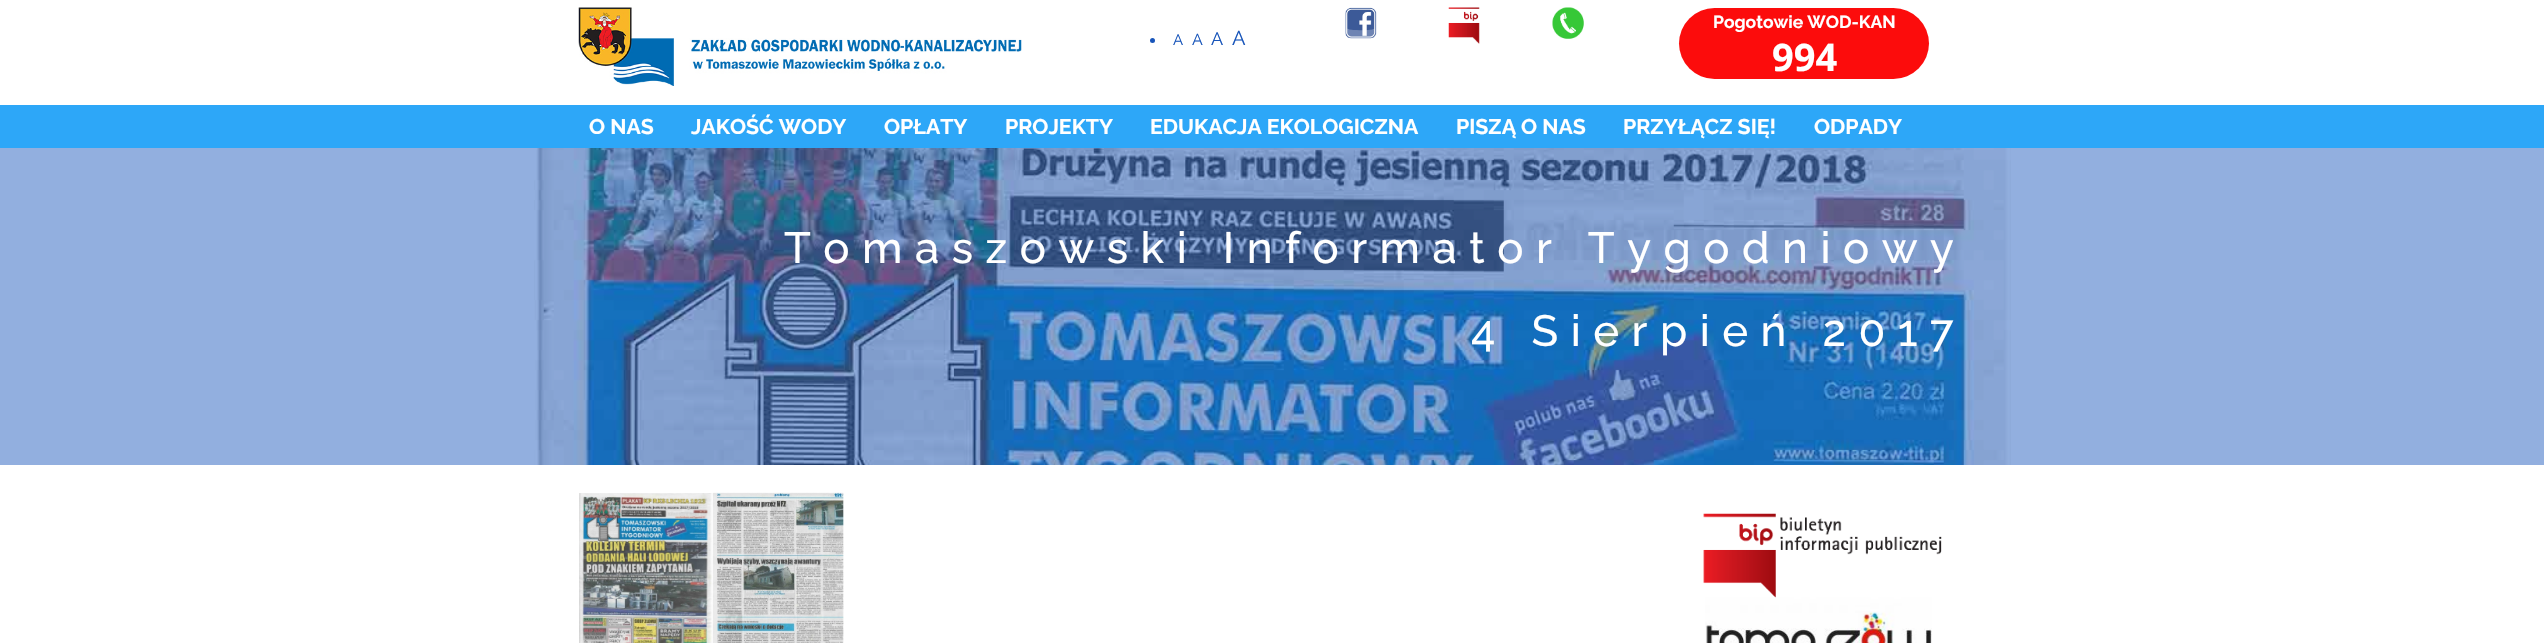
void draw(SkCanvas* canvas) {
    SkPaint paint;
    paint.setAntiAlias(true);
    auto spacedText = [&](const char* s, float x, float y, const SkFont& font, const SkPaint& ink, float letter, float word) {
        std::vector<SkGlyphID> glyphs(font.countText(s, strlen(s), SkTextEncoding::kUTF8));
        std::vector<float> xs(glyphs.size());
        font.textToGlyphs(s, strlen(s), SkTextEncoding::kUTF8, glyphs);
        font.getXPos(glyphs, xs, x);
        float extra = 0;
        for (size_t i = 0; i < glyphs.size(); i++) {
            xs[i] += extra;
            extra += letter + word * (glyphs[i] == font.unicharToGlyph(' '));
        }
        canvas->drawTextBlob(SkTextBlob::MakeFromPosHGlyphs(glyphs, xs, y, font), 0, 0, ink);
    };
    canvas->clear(0xFFFFFFFF);
    paint.setColor(0xFF92AFDF);
    canvas->drawRect(SkRect::MakeXYWH(0, 148, 2544, 317), paint);
    canvas->drawImageRect(SkImages::DeferredFromEncodedData(SkData::MakeFromFileName("img1.png")), SkRect::MakeXYWH(578, 7, 444, 79), SkSamplingOptions());
    paint.setColor(0xFF1855BA);
    canvas->drawCircle(1152.5f, 40.5f, 2.5f, paint);
    SkFont font1(fontMgr->matchFamilyStyle("Raleway", SkFontStyle::Normal()), 15);
    font1.setSubpixel(true);
    canvas->drawString("A", 1173, 45, font1, paint);
    SkFont font2(fontMgr->matchFamilyStyle("Raleway", SkFontStyle::Normal()), 16);
    font2.setSubpixel(true);
    canvas->drawString("A", 1192, 45, font2, paint);
    SkFont font3(fontMgr->matchFamilyStyle("Raleway", SkFontStyle::Normal()), 18);
    font3.setSubpixel(true);
    canvas->drawString("A", 1211, 45, font3, paint);
    SkFont font4(fontMgr->matchFamilyStyle("Raleway", SkFontStyle::Normal()), 20);
    font4.setSubpixel(true);
    canvas->drawString("A", 1232, 45, font4, paint);
    canvas->drawImageRect(SkImages::DeferredFromEncodedData(SkData::MakeFromFileName("img2.png")), SkRect::MakeXYWH(1345, 7, 32, 32), SkSamplingOptions());
    canvas->drawImageRect(SkImages::DeferredFromEncodedData(SkData::MakeFromFileName("img3.png")), SkRect::MakeXYWH(1448, 7, 32, 37), SkSamplingOptions());
    canvas->drawImageRect(SkImages::DeferredFromEncodedData(SkData::MakeFromFileName("img4.png")), SkRect::MakeXYWH(1552, 7, 32, 32), SkSamplingOptions());
    paint.setColor(0xFFFC0C0C);
    canvas->drawRoundRect(SkRect::MakeXYWH(1679, 8, 250, 71), 35.5f, 35.5f, paint);
    SkFont font5(fontMgr->matchFamilyStyle("Raleway", SkFontStyle::Bold()), 17.5f);
    font5.setSubpixel(true);
    paint.setColor(0xFFFFFFFF);
    canvas->drawString("Pogotowie WOD-KAN", 1713, 28, font5, paint);
    SkFont font6(fontMgr->matchFamilyStyle("Open Sans", SkFontStyle::Bold()), 38);
    font6.setSubpixel(true);
    canvas->drawString("994", 1772, 71, font6, paint);
    paint.setColor(0xFF2DA7F8);
    canvas->drawRect(SkRect::MakeXYWH(0, 105, 2544, 43), paint);
    SkFont font7(fontMgr->matchFamilyStyle("Raleway", SkFontStyle::Bold()), 21.25f);
    font7.setSubpixel(true);
    paint.setColor(0xFFFFFFFF);
    canvas->drawString("O NAS", 589, 134, font7, paint);
    canvas->drawString("JAKOŚĆ WODY", 691, 134, font7, paint);
    canvas->drawString("OPŁATY", 884, 134, font7, paint);
    canvas->drawString("PROJEKTY", 1005, 134, font7, paint);
    canvas->drawString("EDUKACJA EKOLOGICZNA", 1150, 134, font7, paint);
    canvas->drawString("PISZĄ O NAS", 1456, 134, font7, paint);
    canvas->drawString("PRZYŁĄCZ SIĘ!", 1623, 134, font7, paint);
    canvas->drawString("ODPADY", 1814, 134, font7, paint);
    canvas->drawImageRect(SkImages::DeferredFromEncodedData(SkData::MakeFromFileName("img5.png")), SkRect::MakeXYWH(534, 148, 1477, 317), SkSamplingOptions());
    SkFont font8(fontMgr->matchFamilyStyle("Raleway", SkFontStyle(500, SkFontStyle::kNormal_Width, SkFontStyle::kUpright_Slant)), 43.75f);
    font8.setSubpixel(true);
    spacedText("Tomaszowski Informator Tygodniowy", 784, 263, font8, paint, 12.5f, 0);
    spacedText("4 Sierpień 2017", 1471, 346, font8, paint, 12.5f, 0);
    canvas->drawImageRect(SkImages::DeferredFromEncodedData(SkData::MakeFromFileName("img6.png")), SkRect::MakeXYWH(579, 493, 133, 150), SkSamplingOptions());
    canvas->drawImageRect(SkImages::DeferredFromEncodedData(SkData::MakeFromFileName("img7.png")), SkRect::MakeXYWH(712, 492, 132, 151), SkSamplingOptions());
    canvas->drawImageRect(SkImages::DeferredFromEncodedData(SkData::MakeFromFileName("img8.png")), SkRect::MakeXYWH(1703, 513, 239, 85), SkSamplingOptions());
    canvas->drawImageRect(SkImages::DeferredFromEncodedData(SkData::MakeFromFileName("img9.png")), SkRect::MakeXYWH(1705, 597, 227, 46), SkSamplingOptions());
}
